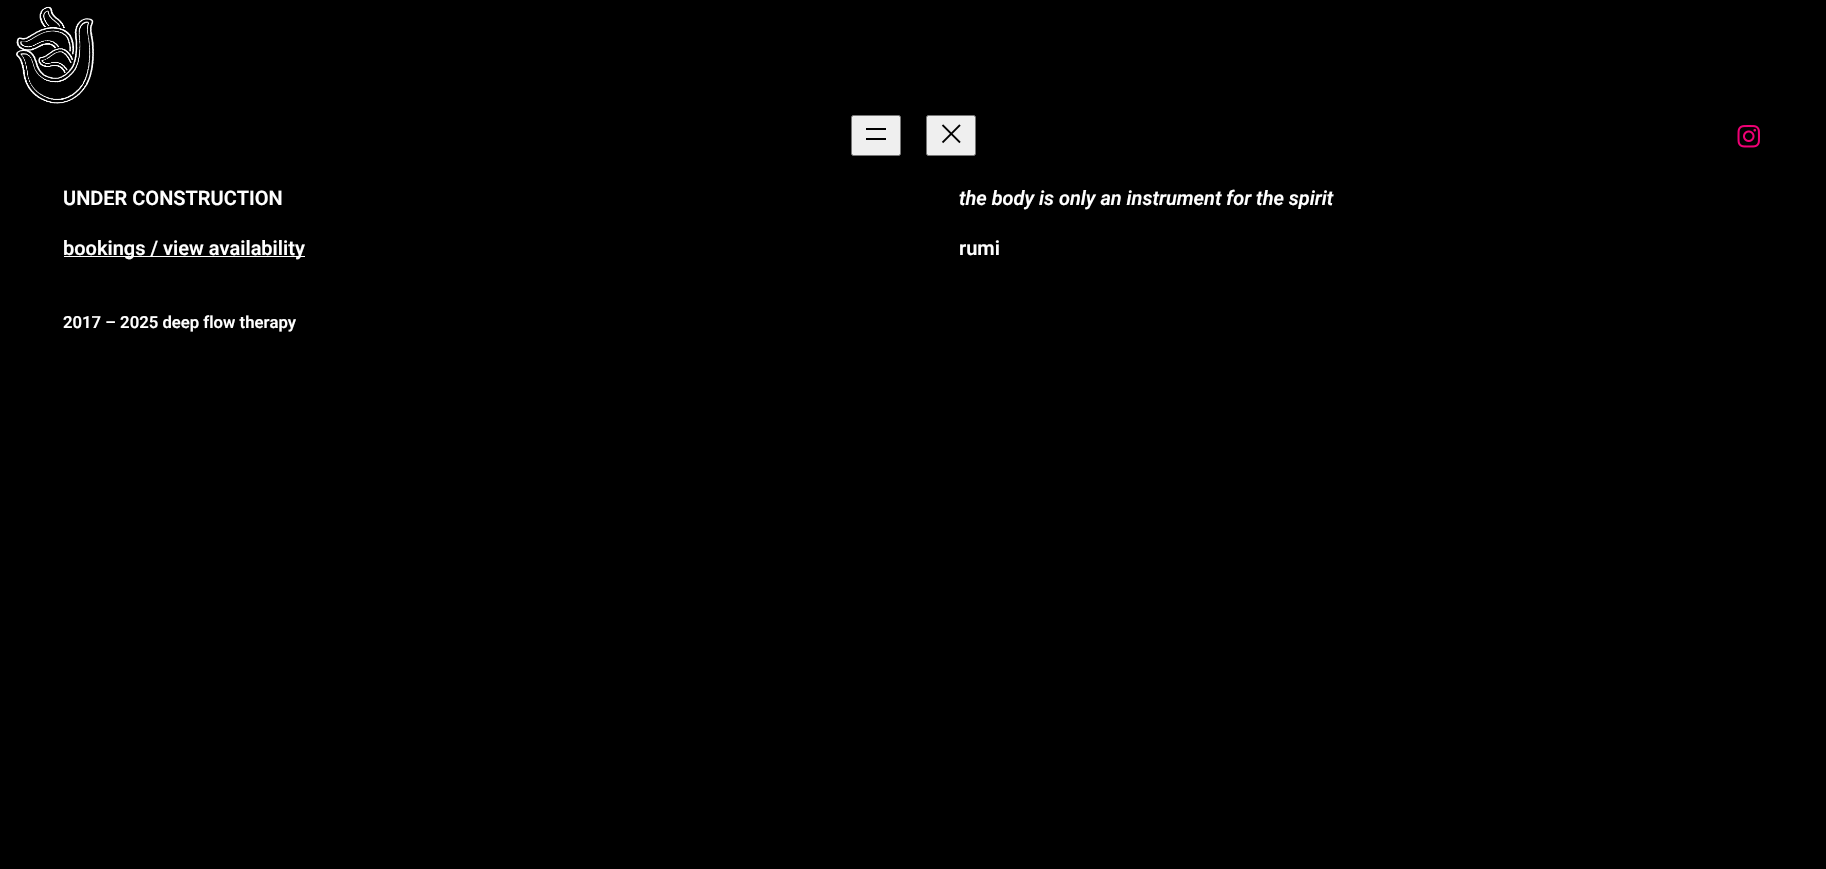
void draw(SkCanvas* canvas) {
    SkPaint paint;
    paint.setAntiAlias(true);
    canvas->clear(0xFF000000);
    canvas->drawImageRect(SkImages::DeferredFromEncodedData(SkData::MakeFromFileName("img1.png")), SkRect::MakeXYWH(16, 6, 78, 98), SkSamplingOptions());
    paint.setColor(0xFFEFEFEF);
    canvas->drawRoundRect(SkRect::MakeXYWH(851.5f, 115.5f, 49, 40), 2, 2, paint);
    paint.setStyle(SkPaint::kStroke_Style);
    paint.setStrokeWidth(1);
    paint.setColor(0xFF767676);
    canvas->drawRoundRect(SkRect::MakeXYWH(851.5f, 115.5f, 49, 40), 2, 2, paint);
    paint.setStyle(SkPaint::kFill_Style);
    paint.setColor(0xFF000000);
    canvas->drawRect(SkRect::MakeXYWH(866, 128, 20, 2), paint);
    canvas->drawRect(SkRect::MakeXYWH(866, 138, 20, 2), paint);
    paint.setColor(0xFFEFEFEF);
    canvas->drawRoundRect(SkRect::MakeXYWH(926.5f, 115.5f, 49, 40), 2, 2, paint);
    paint.setStyle(SkPaint::kStroke_Style);
    paint.setColor(0xFF767676);
    canvas->drawRoundRect(SkRect::MakeXYWH(926.5f, 115.5f, 49, 40), 2, 2, paint);
    canvas->drawImageRect(SkImages::DeferredFromEncodedData(SkData::MakeFromFileName("img2.png")), SkRect::MakeXYWH(941, 124, 20, 20), SkSamplingOptions());
    canvas->drawImageRect(SkImages::DeferredFromEncodedData(SkData::MakeFromFileName("img3.png")), SkRect::MakeXYWH(1737, 125, 23, 23), SkSamplingOptions());
    SkFont font1(fontMgr->matchFamilyStyle("Roboto", SkFontStyle(600, SkFontStyle::kNormal_Width, SkFontStyle::kUpright_Slant)), 20);
    font1.setSubpixel(true);
    paint.setStyle(SkPaint::kFill_Style);
    paint.setColor(0xFFFFFFFF);
    canvas->drawString("UNDER CONSTRUCTION", 63, 205, font1, paint);
    canvas->drawRect(SkRect::MakeXYWH(64, 256, 241, 1), paint);
    canvas->drawString("bookings / view availability", 63, 255, font1, paint);
    SkFont font2(fontMgr->matchFamilyStyle("Roboto", SkFontStyle(600, SkFontStyle::kNormal_Width, SkFontStyle::kItalic_Slant)), 20);
    font2.setSubpixel(true);
    canvas->drawString("the body is only an instrument for the spirit", 959, 205, font2, paint);
    canvas->drawString("rumi", 959, 255, font1, paint);
    SkFont font3(fontMgr->matchFamilyStyle("Roboto", SkFontStyle(600, SkFontStyle::kNormal_Width, SkFontStyle::kUpright_Slant)), 16.7f);
    font3.setSubpixel(true);
    canvas->drawString("2017 – 2025 deep flow therapy", 63, 328, font3, paint);
}
